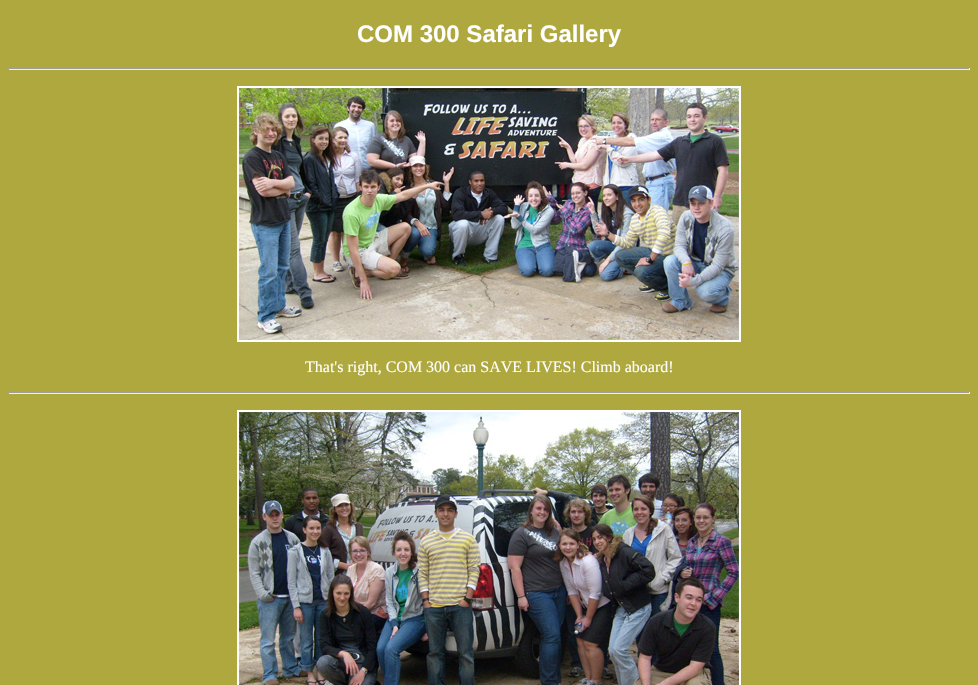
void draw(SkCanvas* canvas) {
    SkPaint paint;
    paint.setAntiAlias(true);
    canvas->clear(0xFFAEA83E);
    SkFont font1(fontMgr->matchFamilyStyle("Liberation Sans", SkFontStyle::Bold()), 24);
    font1.setSubpixel(true);
    paint.setColor(0xFFFFFFFF);
    canvas->drawString("COM 300 Safari Gallery", 357, 42, font1, paint);
    paint.setColor(0xFF9F9F9F);
    canvas->drawRect(SkRect::MakeXYWH(8, 68, 962, 1), paint);
    paint.setColor(0xFFEEEEEE);
    canvas->drawRect(SkRect::MakeXYWH(969, 68, 1, 2), paint);
    canvas->drawRect(SkRect::MakeXYWH(8, 69, 962, 1), paint);
    paint.setColor(0xFF9F9F9F);
    canvas->drawRect(SkRect::MakeXYWH(8, 68, 1, 2), paint);
    paint.setStyle(SkPaint::kStroke_Style);
    paint.setStrokeWidth(2);
    paint.setColor(0xFFFFFFFF);
    canvas->drawRect(SkRect::MakeXYWH(238, 87, 502, 254), paint);
    canvas->drawImageRect(SkImages::DeferredFromEncodedData(SkData::MakeFromFileName("img1.png")), SkRect::MakeXYWH(239, 88, 500, 252), SkSamplingOptions());
    SkFont font2(fontMgr->matchFamilyStyle("Liberation Serif", SkFontStyle::Normal()), 16);
    font2.setSubpixel(true);
    paint.setStyle(SkPaint::kFill_Style);
    canvas->drawString("That's right, COM 300 can SAVE LIVES! Climb aboard!", 305, 372, font2, paint);
    paint.setColor(0xFF9F9F9F);
    canvas->drawRect(SkRect::MakeXYWH(8, 392, 962, 1), paint);
    paint.setColor(0xFFEEEEEE);
    canvas->drawRect(SkRect::MakeXYWH(969, 392, 1, 2), paint);
    canvas->drawRect(SkRect::MakeXYWH(8, 393, 962, 1), paint);
    paint.setColor(0xFF9F9F9F);
    canvas->drawRect(SkRect::MakeXYWH(8, 392, 1, 2), paint);
    paint.setStyle(SkPaint::kStroke_Style);
    paint.setColor(0xFFFFFFFF);
    canvas->drawRect(SkRect::MakeXYWH(238, 411, 502, 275), paint);
    canvas->drawImageRect(SkImages::DeferredFromEncodedData(SkData::MakeFromFileName("img2.png")), SkRect::MakeXYWH(239, 412, 500, 273), SkSamplingOptions());
}
